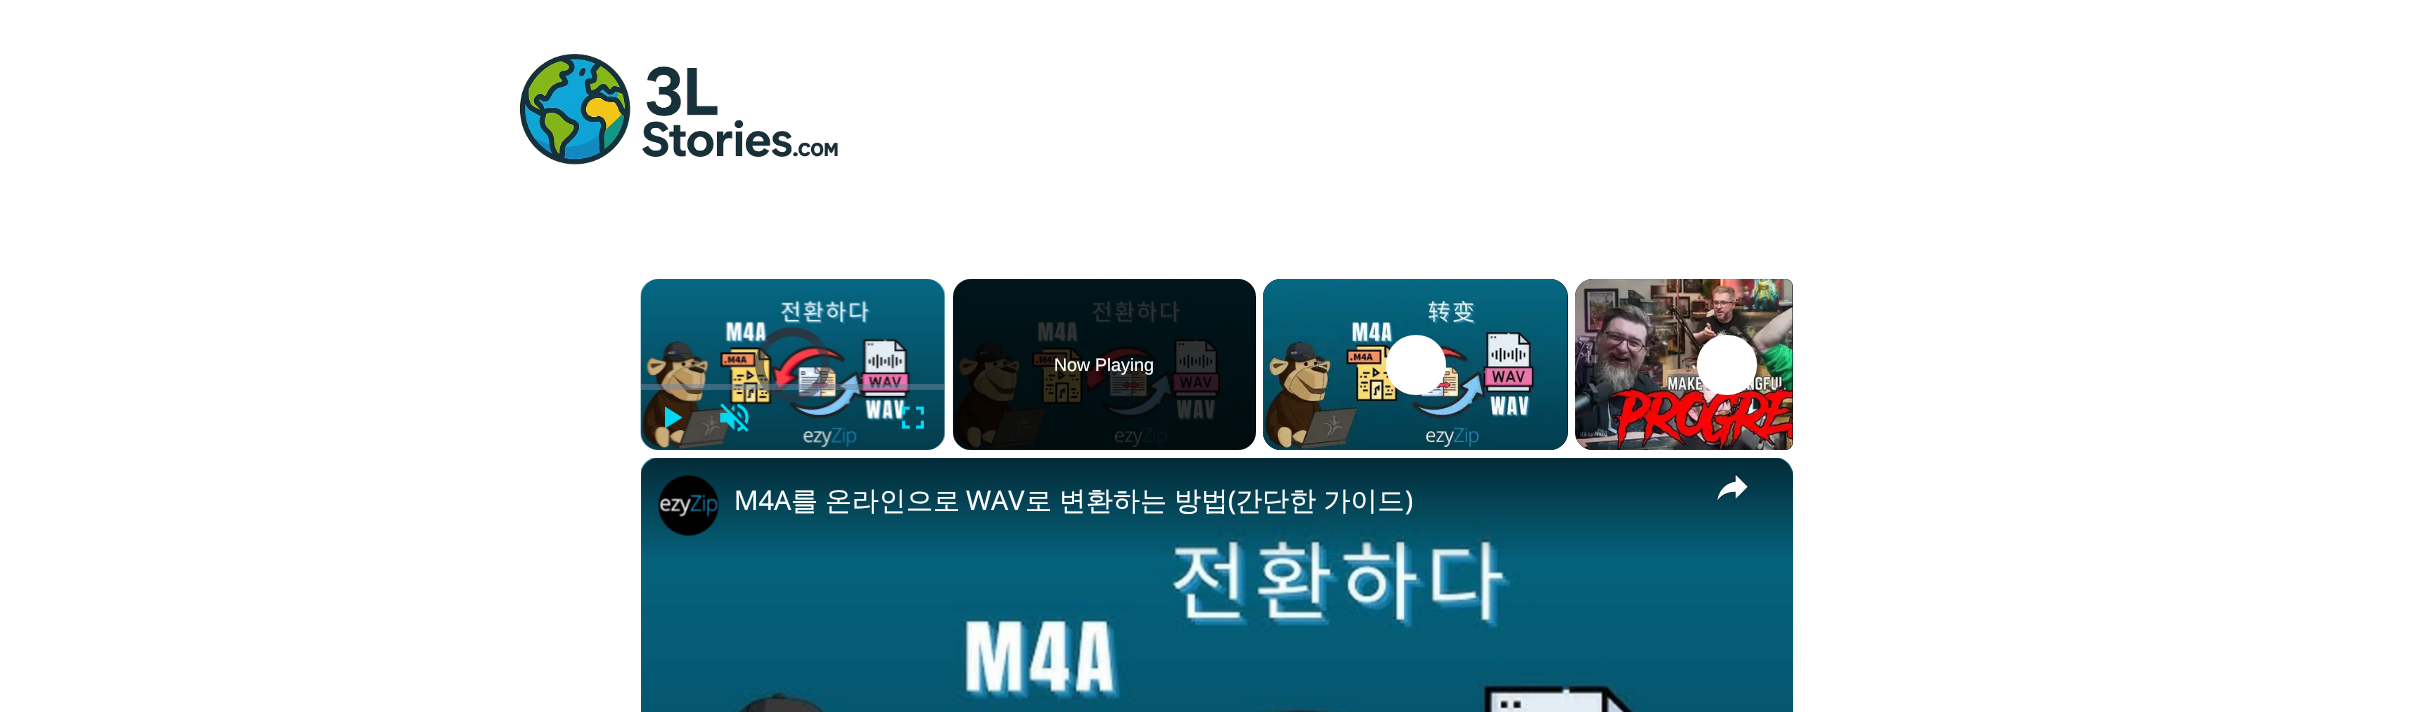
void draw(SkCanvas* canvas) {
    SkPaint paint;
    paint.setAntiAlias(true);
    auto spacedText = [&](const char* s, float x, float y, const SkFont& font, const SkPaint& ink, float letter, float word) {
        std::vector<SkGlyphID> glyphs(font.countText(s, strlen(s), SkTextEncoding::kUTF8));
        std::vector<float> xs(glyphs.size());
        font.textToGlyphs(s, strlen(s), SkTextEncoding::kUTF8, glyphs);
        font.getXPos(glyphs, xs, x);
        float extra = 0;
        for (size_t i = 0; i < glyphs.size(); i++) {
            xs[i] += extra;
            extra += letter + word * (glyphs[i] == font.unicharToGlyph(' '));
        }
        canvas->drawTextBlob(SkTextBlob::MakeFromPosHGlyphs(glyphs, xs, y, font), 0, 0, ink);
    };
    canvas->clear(0xFFFFFFFF);
    canvas->drawImageRect(SkImages::DeferredFromEncodedData(SkData::MakeFromFileName("img1.png")), SkRect::MakeXYWH(519, 54, 319, 111), SkSamplingOptions());
    canvas->drawImageRect(SkImages::DeferredFromEncodedData(SkData::MakeFromFileName("img2.png")), SkRect::MakeXYWH(640, 279, 305, 171), SkSamplingOptions());
    paint.setStyle(SkPaint::kStroke_Style);
    paint.setStrokeWidth(9);
    paint.setColor(0x962B333F);
    canvas->drawCircle(792.5f, 364.5f, 33, paint);
    canvas->drawPath(SkPathBuilder().moveTo(768.5f, 341).cubicTo(781.5f, 328.5f, 802.5f, 328.5f, 815.5f, 341).detach(), paint);
    canvas->drawPath(SkPathBuilder().moveTo(768.5f, 341).cubicTo(781.5f, 328.5f, 802.5f, 328.5f, 815.5f, 341).detach(), paint);
    paint.setStyle(SkPaint::kFill_Style);
    paint.setColor(0x8073859F);
    canvas->drawRect(SkRect::MakeXYWH(641, 384, 304, 6), paint);
    paint.setColor(0xFF03D8F3);
    canvas->drawPath(SkPathBuilder().moveTo(665, 406.5f).lineTo(665, 428.5f).lineTo(682.5f, 417.5f).close().detach(), paint);
    canvas->drawImageRect(SkImages::DeferredFromEncodedData(SkData::MakeFromFileName("img3.png")), SkRect::MakeXYWH(720, 403, 29, 29), SkSamplingOptions());
    canvas->drawImageRect(SkImages::DeferredFromEncodedData(SkData::MakeFromFileName("img4.png")), SkRect::MakeXYWH(901, 406, 23, 23), SkSamplingOptions());
    paint.setColor(0xFF000000);
    canvas->drawRoundRect(SkRect::MakeXYWH(953, 279, 303, 171), 18, 18, paint);
    canvas->drawImageRect(SkImages::DeferredFromEncodedData(SkData::MakeFromFileName("img5.png")), SkRect::MakeXYWH(952, 279, 304, 171), SkSamplingOptions());
    SkFont font1(fontMgr->matchFamilyStyle("Liberation Sans", SkFontStyle::Normal()), 18);
    font1.setSubpixel(true);
    paint.setColor(0xFFFFFFFF);
    canvas->drawString("Now Playing", 1054, 371, font1, paint);
    paint.setColor(0xFF000000);
    canvas->drawRoundRect(SkRect::MakeXYWH(1263, 279, 305, 171), 18, 18, paint);
    canvas->drawImageRect(SkImages::DeferredFromEncodedData(SkData::MakeFromFileName("img6.png")), SkRect::MakeXYWH(1263, 279, 305, 171), SkSamplingOptions());
    paint.setColor(0xFFFFFFFF);
    canvas->drawPath(SkPathBuilder().moveTo(1416, 335).cubicTo(1399, 335, 1386, 348, 1386, 365).cubicTo(1386, 382, 1399, 395, 1416, 395).cubicTo(1433, 395, 1446, 382, 1446, 365).cubicTo(1446, 348, 1433, 335, 1416, 335).close().detach(), paint);
    paint.setColor(0xFF000000);
    canvas->drawPath(SkPathBuilder().moveTo(1593, 279).lineTo(1785, 279).cubicTo(1789.5f, 279, 1793, 282.5f, 1793, 287).lineTo(1793, 442).cubicTo(1793, 446.5f, 1789.5f, 450, 1785, 450).lineTo(1593, 450).cubicTo(1583, 450, 1575, 442, 1575, 432).lineTo(1575, 297).cubicTo(1575, 287, 1583, 279, 1593, 279).close().detach(), paint);
    canvas->drawImageRect(SkImages::DeferredFromEncodedData(SkData::MakeFromFileName("img7.png")), SkRect::MakeXYWH(1575, 279, 218, 171), SkSamplingOptions());
    paint.setColor(0xFFFFFFFF);
    canvas->drawPath(SkPathBuilder().moveTo(1727, 335).cubicTo(1710, 335, 1697, 348, 1697, 365).cubicTo(1697, 382, 1710, 395, 1727, 395).cubicTo(1744, 395, 1757, 382, 1757, 365).cubicTo(1757, 348, 1744, 335, 1727, 335).close().detach(), paint);
    canvas->drawImageRect(SkImages::DeferredFromEncodedData(SkData::MakeFromFileName("img8.png")), SkRect::MakeXYWH(641, 458, 1152, 254), SkSamplingOptions());
    canvas->drawImageRect(SkImages::DeferredFromEncodedData(SkData::MakeFromFileName("img9.png")), SkRect::MakeXYWH(641, 458, 1152, 18), SkSamplingOptions());
    {
        const SkColor colors[] = {0x99000000, 0x00000000, 0x00000000, 0xCC000000};
        const float stops[] = {0, 0.16f, 0.84f, 1};
        const SkPoint ends[] = {{1217, 457}, {1217, 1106}};
        paint.setShader(SkGradientShader::MakeLinear(ends, colors, stops, 4, SkTileMode::kClamp));
        paint.setAlpha(255);
    }
    canvas->drawRoundRect(SkRect::MakeXYWH(641, 458, 1152, 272), 18, 18, paint);
    canvas->drawImageRect(SkImages::DeferredFromEncodedData(SkData::MakeFromFileName("img10.png")), SkRect::MakeXYWH(658, 475, 61, 61), SkSamplingOptions());
    SkFont font2(fontMgr->matchFamilyStyle("Noto Sans", SkFontStyle::Normal()), 27);
    font2.setSubpixel(true);
    paint.setShader(nullptr);
    paint.setColor(0xFFFFFFFF);
    canvas->drawString("M4A", 734, 510, font2, paint);
    SkFont font3(fontMgr->matchFamilyStyle("WenQuanYi Zen Hei", SkFontStyle(500, SkFontStyle::kNormal_Width, SkFontStyle::kUpright_Slant)), 27);
    font3.setSubpixel(true);
    spacedText("를 온라인으로", 791, 510, font3, paint, 0, -1);
    canvas->drawString("WAV", 966, 510, font2, paint);
    spacedText("로 변환하는 방법 간단한 가이드", 1025, 510, font3, paint, 0, -1);
    canvas->drawString("(", 1228, 510, font2, paint);
    canvas->drawString(")", 1405, 510, font2, paint);
    canvas->drawImageRect(SkImages::DeferredFromEncodedData(SkData::MakeFromFileName("img11.png")), SkRect::MakeXYWH(1716, 472, 33, 30), SkSamplingOptions());
}
